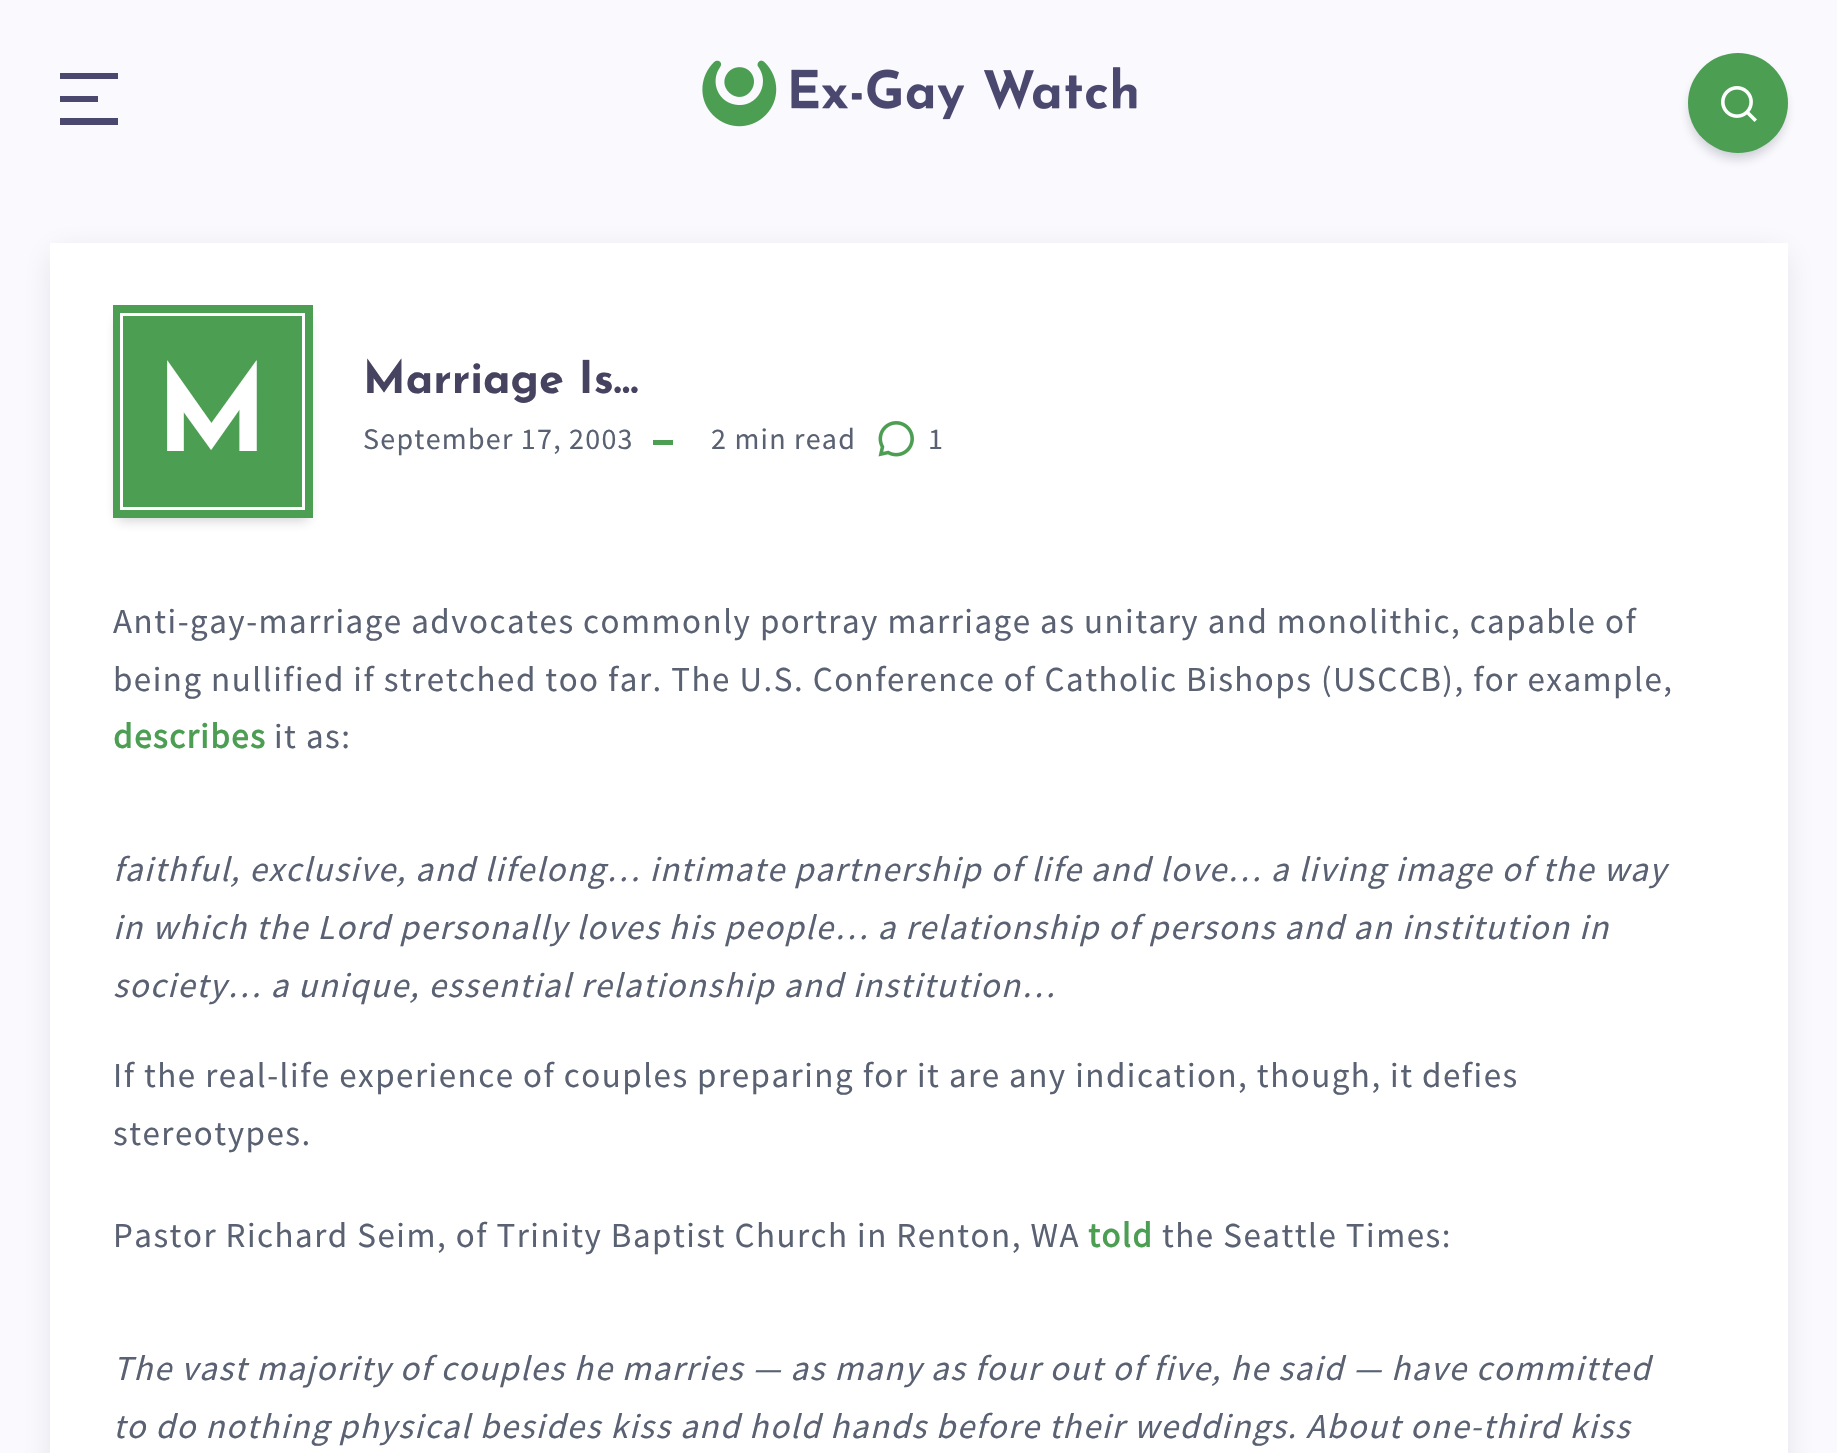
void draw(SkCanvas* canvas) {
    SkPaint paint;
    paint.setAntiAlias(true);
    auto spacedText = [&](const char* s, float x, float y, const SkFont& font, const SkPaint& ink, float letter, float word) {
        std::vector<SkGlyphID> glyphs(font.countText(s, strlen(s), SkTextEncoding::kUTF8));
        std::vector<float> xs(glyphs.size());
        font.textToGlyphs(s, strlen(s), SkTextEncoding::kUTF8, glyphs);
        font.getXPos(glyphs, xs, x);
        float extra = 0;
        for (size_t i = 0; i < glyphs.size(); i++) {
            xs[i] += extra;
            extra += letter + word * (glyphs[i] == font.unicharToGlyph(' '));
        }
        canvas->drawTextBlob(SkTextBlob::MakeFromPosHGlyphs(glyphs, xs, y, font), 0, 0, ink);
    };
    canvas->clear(0xFFF9F9FE);
    paint.setColor(0xFF4B4870);
    canvas->drawPath(SkPathBuilder().moveTo(60, 73).lineTo(118, 73).lineTo(118, 79).lineTo(60, 79).close().moveTo(60, 96).lineTo(98, 96).lineTo(98, 102).lineTo(60, 102).close().moveTo(60, 118).lineTo(118, 118).lineTo(118, 125).lineTo(60, 125).close().detach(), paint);
    canvas->drawImageRect(SkImages::DeferredFromEncodedData(SkData::MakeFromFileName("img1.png")), SkRect::MakeXYWH(702, 60, 435, 67), SkSamplingOptions());
    paint.setColor(0x33070A19);
    paint.setMaskFilter(SkMaskFilter::MakeBlur(kNormal_SkBlurStyle, 6));
    canvas->drawRoundRect(SkRect::MakeXYWH(1690, 63, 95, 95), 47.5f, 47.5f, paint);
    paint.setMaskFilter(nullptr);
    paint.setColor(0xFF4C9E53);
    canvas->drawCircle(1738, 103, 50, paint);
    canvas->drawImageRect(SkImages::DeferredFromEncodedData(SkData::MakeFromFileName("img2.png")), SkRect::MakeXYWH(1721, 86, 36, 36), SkSamplingOptions());
    paint.setColor(0x1A070A19);
    paint.setMaskFilter(SkMaskFilter::MakeBlur(kNormal_SkBlurStyle, 15));
    canvas->drawRect(SkRect::MakeXYWH(53, 253, 1732, 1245), paint);
    paint.setMaskFilter(nullptr);
    paint.setColor(0xFFFFFFFF);
    canvas->drawRect(SkRect::MakeXYWH(50, 243, 1738, 1210), paint);
    paint.setColor(0x33070A19);
    paint.setMaskFilter(SkMaskFilter::MakeBlur(kNormal_SkBlurStyle, 6));
    canvas->drawRect(SkRect::MakeXYWH(118, 318, 190, 202), paint);
    paint.setMaskFilter(nullptr);
    paint.setColor(0xFF4C9E53);
    canvas->drawRect(SkRect::MakeXYWH(113, 305, 200, 213), paint);
    paint.setStyle(SkPaint::kStroke_Style);
    paint.setStrokeWidth(3);
    paint.setColor(0xFFFFFFFF);
    canvas->drawRect(SkRect::MakeXYWH(121.5f, 314.5f, 182, 194), paint);
    SkFont font1(fontMgr->matchFamilyStyle("Josefin Sans", SkFontStyle(100, SkFontStyle::kNormal_Width, SkFontStyle::kUpright_Slant)), 118);
    font1.setSubpixel(true);
    paint.setStyle(SkPaint::kFill_Style);
    spacedText("M", 156, 451, font1, paint, 1.25f, 0);
    SkFont font2(fontMgr->matchFamilyStyle("Josefin Sans", SkFontStyle(100, SkFontStyle::kNormal_Width, SkFontStyle::kUpright_Slant)), 45);
    font2.setSubpixel(true);
    paint.setColor(0xFF454360);
    canvas->drawString("Marriage Is…", 363, 393, font2, paint);
    SkFont font3(fontMgr->matchFamilyStyle("Source Sans Pro", SkFontStyle::Normal()), 30);
    font3.setSubpixel(true);
    paint.setColor(0xFF596172);
    spacedText("September 17, 2003", 363, 449, font3, paint, 1.25f, 0);
    paint.setColor(0xFF4C9E53);
    canvas->drawRect(SkRect::MakeXYWH(653, 440, 20, 5), paint);
    paint.setColor(0xFF596172);
    spacedText("2 min read", 711, 449, font3, paint, 1.25f, 0);
    canvas->drawImageRect(SkImages::DeferredFromEncodedData(SkData::MakeFromFileName("img3.png")), SkRect::MakeXYWH(878, 421, 36, 36), SkSamplingOptions());
    spacedText("1", 928, 449, font3, paint, 1.25f, 0);
    SkFont font4(fontMgr->matchFamilyStyle("Source Sans Pro", SkFontStyle::Normal()), 35);
    font4.setSubpixel(true);
    spacedText("Anti-gay-marriage advocates commonly portray marriage as unitary and monolithic, capable of", 113, 633, font4, paint, 1.5f, 0);
    spacedText("being nullified if stretched too far. The U.S. Conference of Catholic Bishops (USCCB), for example,", 113, 691, font4, paint, 1.5f, 0);
    SkFont font5(fontMgr->matchFamilyStyle("Source Sans Pro", SkFontStyle::Bold()), 35);
    font5.setSubpixel(true);
    paint.setColor(0xFF4C9E53);
    spacedText("describes", 113, 748, font5, paint, 1.5f, 0);
    paint.setColor(0xFF596172);
    spacedText("it as:", 274, 748, font4, paint, 1.5f, 0);
    SkFont font6(fontMgr->matchFamilyStyle("Source Sans Pro", SkFontStyle::Italic()), 35);
    font6.setSubpixel(true);
    spacedText("faithful, exclusive, and lifelong… intimate partnership of life and love… a living image of the way", 113, 881, font6, paint, 1.5f, 0);
    spacedText("in which the Lord personally loves his people… a relationship of persons and an institution in", 113, 939, font6, paint, 1.5f, 0);
    spacedText("society… a unique, essential relationship and institution…", 113, 997, font6, paint, 1.5f, 0);
    spacedText("If the real-life experience of couples preparing for it are any indication, though, it defies", 113, 1087, font4, paint, 1.5f, 0);
    spacedText("stereotypes.", 113, 1145, font4, paint, 1.5f, 0);
    spacedText("Pastor Richard Seim, of Trinity Baptist Church in Renton, WA", 113, 1247, font4, paint, 1.5f, 0);
    paint.setColor(0xFF4C9E53);
    spacedText("told", 1088, 1247, font5, paint, 1.5f, 0);
    paint.setColor(0xFF596172);
    spacedText("the Seattle Times:", 1162, 1247, font4, paint, 1.5f, 0);
    spacedText("The vast majority of couples he marries — as many as four out of five, he said — have committed", 113, 1380, font6, paint, 1.5f, 0);
    spacedText("to do nothing physical besides kiss and hold hands before their weddings. About one-third kiss", 113, 1438, font6, paint, 1.5f, 0);
}
